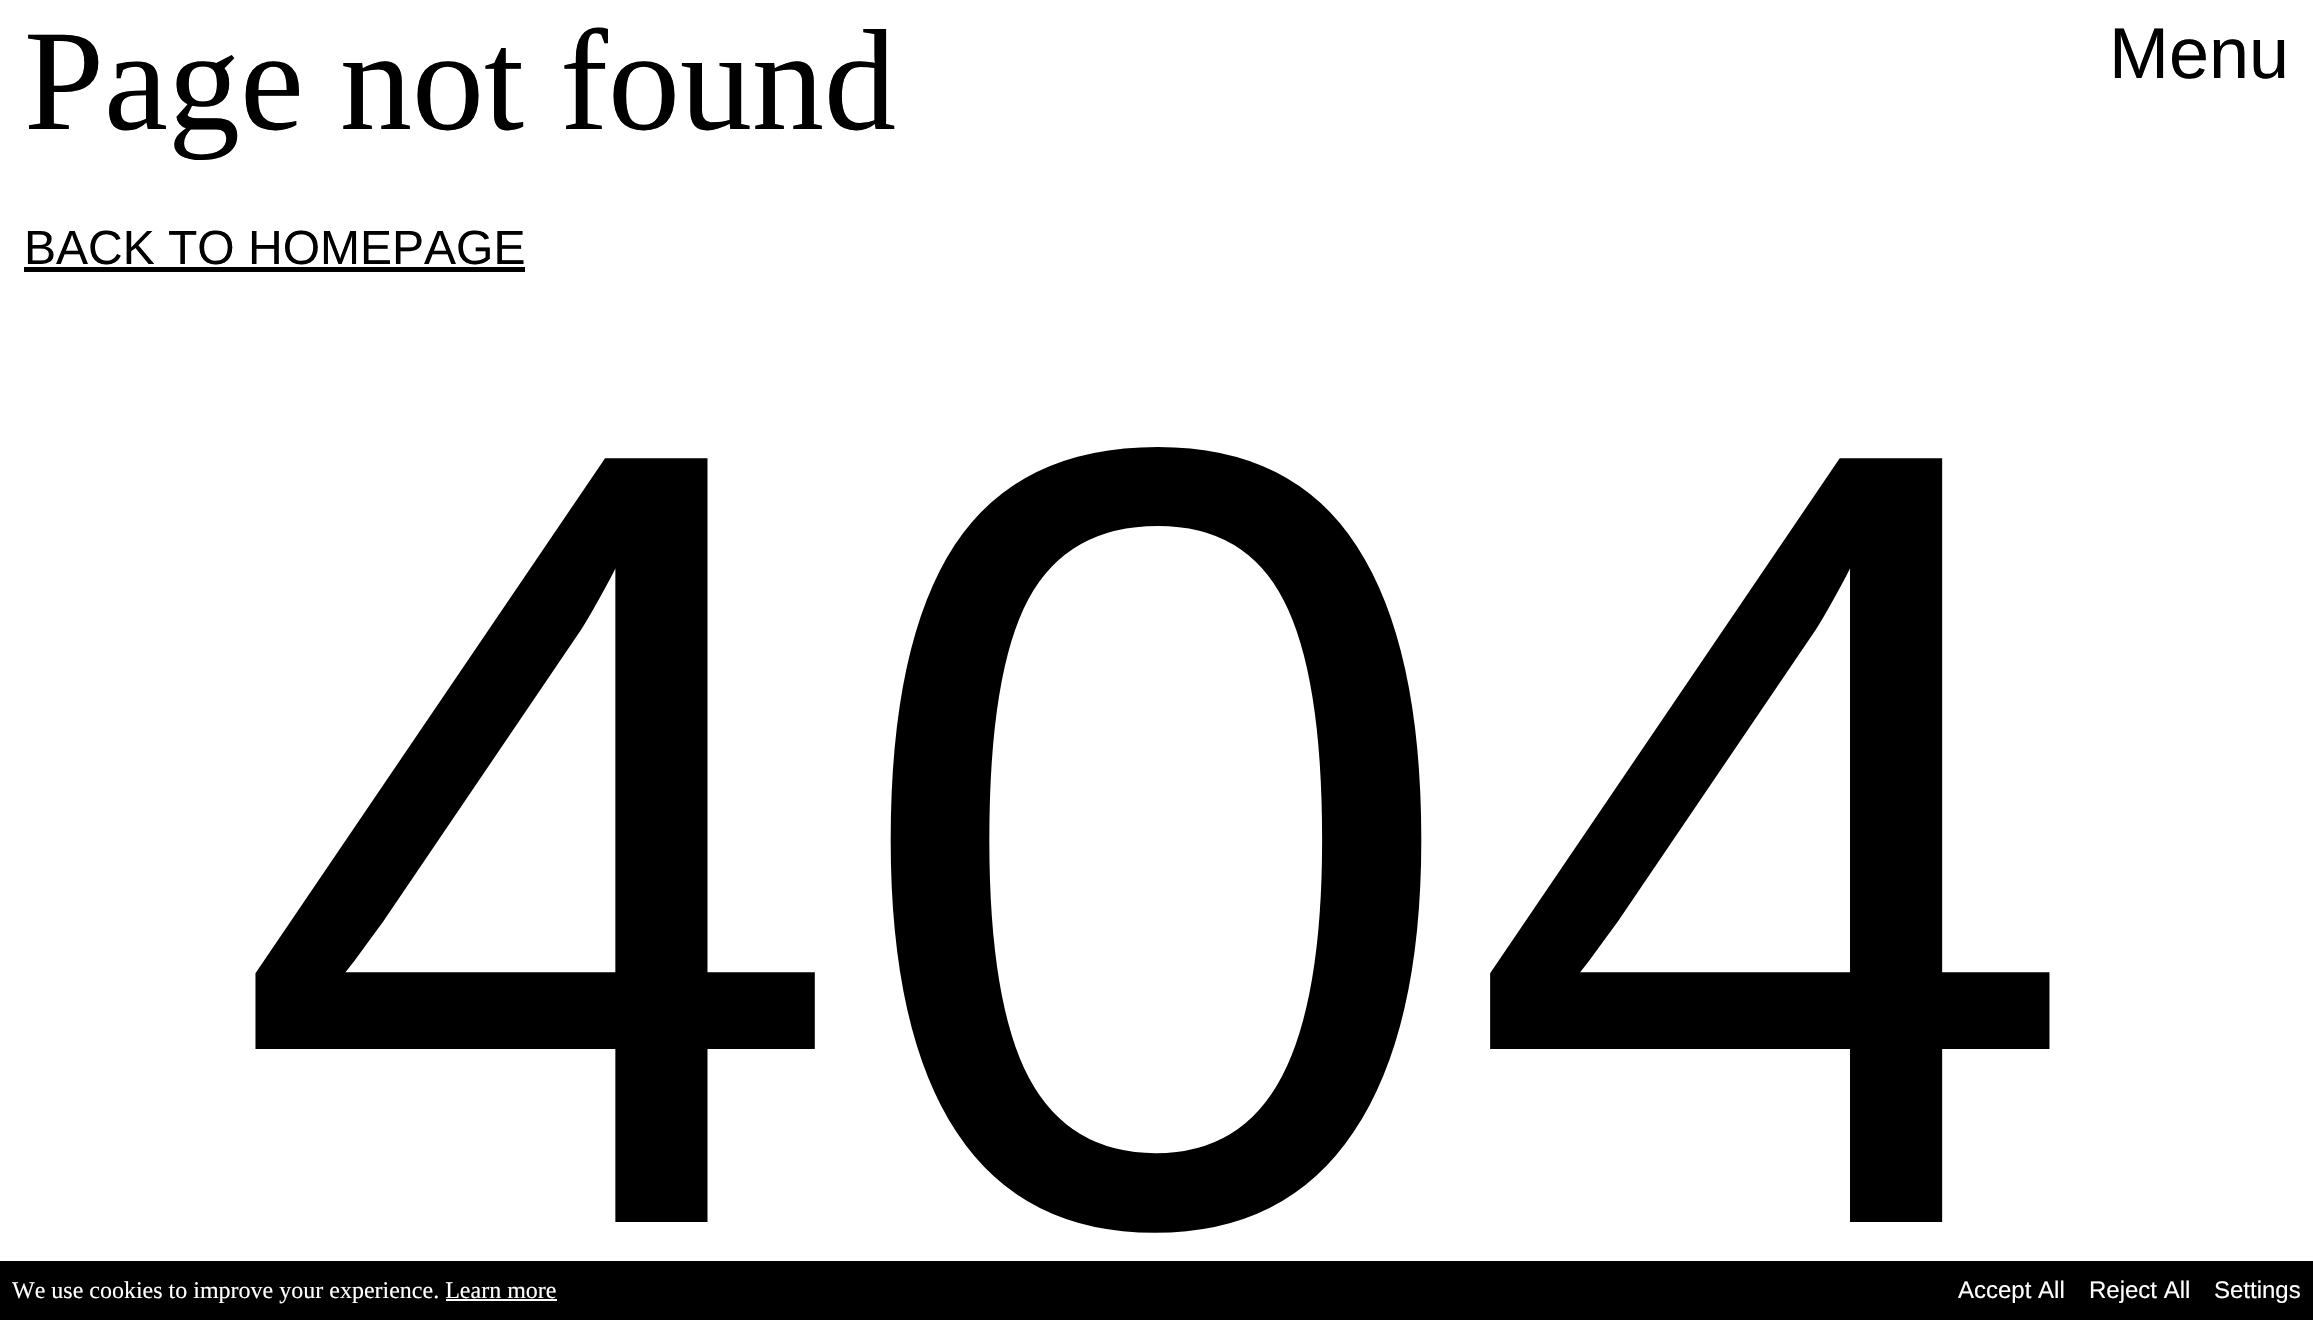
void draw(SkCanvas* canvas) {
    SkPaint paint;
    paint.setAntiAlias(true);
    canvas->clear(0xFFFFFFFF);
    SkFont font1(fontMgr->matchFamilyStyle("Liberation Serif", SkFontStyle::Normal()), 144);
    font1.setSubpixel(true);
    paint.setColor(0xFF000000);
    canvas->drawString("Page not found", 24, 129, font1, paint);
    SkFont font2(fontMgr->matchFamilyStyle("Liberation Sans", SkFontStyle::Normal()), 48);
    font2.setSubpixel(true);
    canvas->drawString("BACK TO HOMEPAGE", 24, 264, font2, paint);
    canvas->drawRect(SkRect::MakeXYWH(24, 267, 501, 5), paint);
    SkFont font3(fontMgr->matchFamilyStyle("Liberation Sans", SkFontStyle::Normal()), 1110);
    font3.setSubpixel(true);
    canvas->drawString("404", 230, 1222, font3, paint);
    SkFont font4(fontMgr->matchFamilyStyle("Liberation Sans", SkFontStyle::Normal()), 72);
    font4.setSubpixel(true);
    canvas->drawString("Menu", 2109, 78, font4, paint);
    canvas->drawRect(SkRect::MakeXYWH(0, 1261, 2313, 59), paint);
    SkFont font5(fontMgr->matchFamilyStyle("Liberation Serif", SkFontStyle::Normal()), 24);
    font5.setSubpixel(true);
    paint.setColor(0xFFFFFFFF);
    canvas->drawString("We use cookies to improve your experience. Learn more", 12, 1298, font5, paint);
    canvas->drawRect(SkRect::MakeXYWH(446, 1299, 111, 2), paint);
    SkFont font6(fontMgr->matchFamilyStyle("Liberation Sans", SkFontStyle::Normal()), 24);
    font6.setSubpixel(true);
    canvas->drawString("Accept All", 1958, 1298, font6, paint);
    canvas->drawString("Reject All", 2089, 1298, font6, paint);
    canvas->drawString("Settings", 2214, 1298, font6, paint);
}
